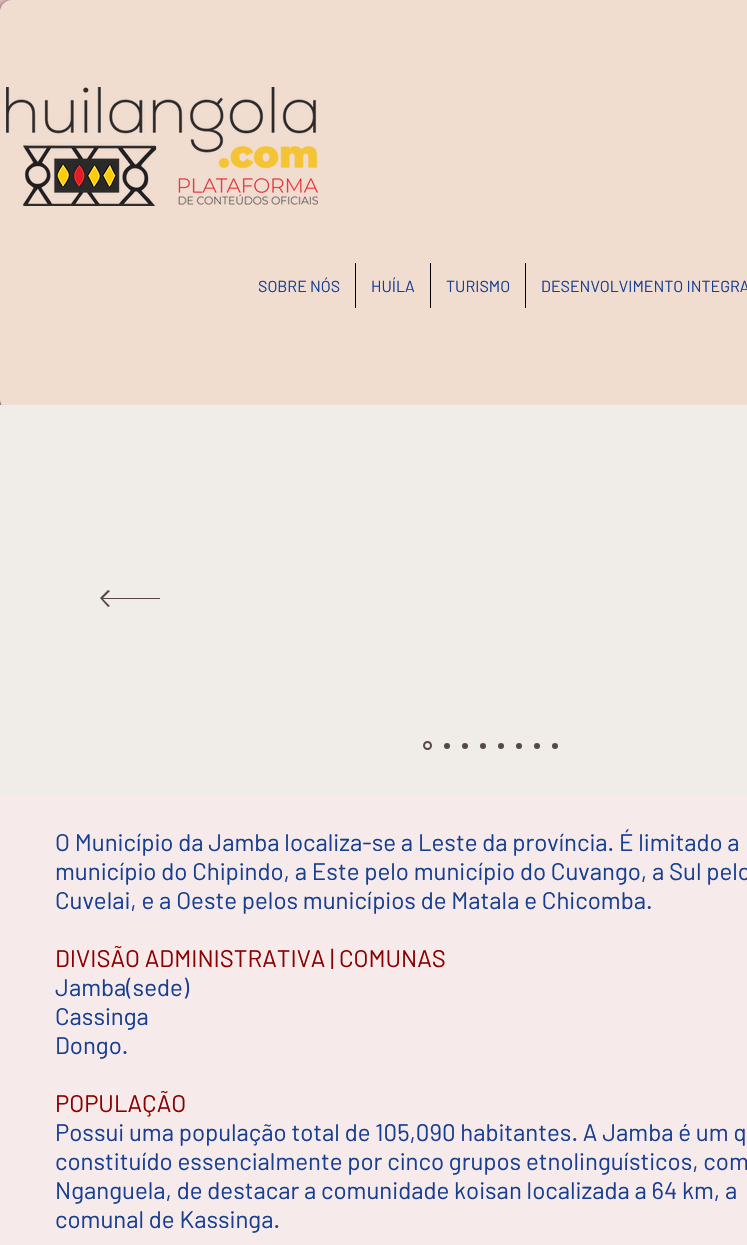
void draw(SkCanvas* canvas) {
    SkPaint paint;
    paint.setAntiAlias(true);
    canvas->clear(0xFFE4B9B9);
    canvas->save();
    canvas->clipPath(SkPathBuilder(SkPathFillType::kEvenOdd).moveTo(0, 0).lineTo(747, 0).lineTo(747, 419).lineTo(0, 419).close().moveTo(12, 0).lineTo(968, 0).cubicTo(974.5f, 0, 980, 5.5f, 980, 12).lineTo(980, 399).cubicTo(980, 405.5f, 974.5f, 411, 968, 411).lineTo(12, 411).cubicTo(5.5f, 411, 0, 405.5f, 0, 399).lineTo(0, 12).cubicTo(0, 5.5f, 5.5f, 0, 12, 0).close().detach(), true);
    paint.setColor(0x99000000);
    paint.setMaskFilter(SkMaskFilter::MakeBlur(kNormal_SkBlurStyle, 2));
    canvas->drawRoundRect(SkRect::MakeXYWH(-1, 1, 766, 411), 12, 12, paint);
    paint.setMaskFilter(nullptr);
    canvas->restore();
    paint.setColor(0xB0F6EADA);
    canvas->drawRoundRect(SkRect::MakeXYWH(0, 0, 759, 411), 12, 12, paint);
    canvas->drawImageRect(SkImages::DeferredFromEncodedData(SkData::MakeFromFileName("img1.png")), SkRect::MakeXYWH(6, 87, 312, 119), SkSamplingOptions());
    SkFont font1(fontMgr->matchFamilyStyle("Barlow", SkFontStyle::Normal()), 16);
    font1.setSubpixel(true);
    paint.setColor(0xFF173F91);
    canvas->drawString("SOBRE NÓS", 258, 292, font1, paint);
    paint.setColor(0xFF000000);
    canvas->drawRect(SkRect::MakeXYWH(355, 263, 1, 45), paint);
    paint.setColor(0xFF173F91);
    canvas->drawString("HUÍLA", 371, 292, font1, paint);
    paint.setColor(0xFF000000);
    canvas->drawRect(SkRect::MakeXYWH(430, 263, 1, 45), paint);
    paint.setColor(0xFF173F91);
    canvas->drawString("TURISMO", 446, 292, font1, paint);
    paint.setColor(0xFF000000);
    canvas->drawRect(SkRect::MakeXYWH(525, 263, 1, 45), paint);
    paint.setColor(0xFF173F91);
    canvas->drawString("DESENVOLVIMENTO INTEGRA", 541, 292, font1, paint);
    paint.setColor(0xB0FFFFFF);
    canvas->drawRect(SkRect::MakeXYWH(0, 795, 747, 450), paint);
    paint.setColor(0xFFF0ECE7);
    canvas->drawRect(SkRect::MakeXYWH(0, 405, 747, 390), paint);
    paint.setColor(0xFF564847);
    canvas->drawPath(SkPathBuilder().moveTo(108, 590).lineTo(110, 591).lineTo(103, 598).lineTo(160, 598).lineTo(160, 599).lineTo(103, 599).lineTo(110, 606).lineTo(108, 607).lineTo(100, 598).close().detach(), paint);
    paint.setStyle(SkPaint::kStroke_Style);
    paint.setStrokeWidth(2);
    canvas->drawCircle(427.5f, 745.5f, 3.5f, paint);
    paint.setStyle(SkPaint::kFill_Style);
    canvas->drawCircle(447, 746, 3, paint);
    canvas->drawCircle(465, 746, 3, paint);
    canvas->drawCircle(483, 746, 3, paint);
    canvas->drawCircle(501, 746, 3, paint);
    canvas->drawCircle(519, 746, 3, paint);
    canvas->drawCircle(537, 746, 3, paint);
    canvas->drawCircle(555, 746, 3, paint);
    SkFont font2(fontMgr->matchFamilyStyle("Barlow", SkFontStyle::Normal()), 24);
    font2.setSubpixel(true);
    paint.setColor(0xFF173F91);
    canvas->drawString("O Município da Jamba localiza-se a Leste da província. É limitado a", 55, 851, font2, paint);
    canvas->drawString("município do Chipindo, a Este pelo município do Cuvango, a Sul pelo", 55, 880, font2, paint);
    canvas->drawString("Cuvelai, e a Oeste pelos municípios de Matala e Chicomba.", 55, 909, font2, paint);
    paint.setColor(0xFF8B0000);
    canvas->drawString("DIVISÃO ADMINISTRATIVA | COMUNAS", 55, 967, font2, paint);
    paint.setColor(0xFF173F91);
    canvas->drawString("Jamba(sede)", 55, 996, font2, paint);
    canvas->drawString("Cassinga", 55, 1025, font2, paint);
    canvas->drawString("Dongo.", 55, 1054, font2, paint);
    paint.setColor(0xFF8B0000);
    canvas->drawString("POPULAÇÃO", 55, 1112, font2, paint);
    paint.setColor(0xFF173F91);
    canvas->drawString("Possui uma população total de 105,090 habitantes. A Jamba é um q", 55, 1141, font2, paint);
    canvas->drawString("constituído essencialmente por cinco grupos etnolinguísticos, com", 55, 1170, font2, paint);
    canvas->drawString("Nganguela, de destacar a comunidade koisan localizada a 64 km, a", 55, 1199, font2, paint);
    canvas->drawString("comunal de Kassinga.", 55, 1228, font2, paint);
}
